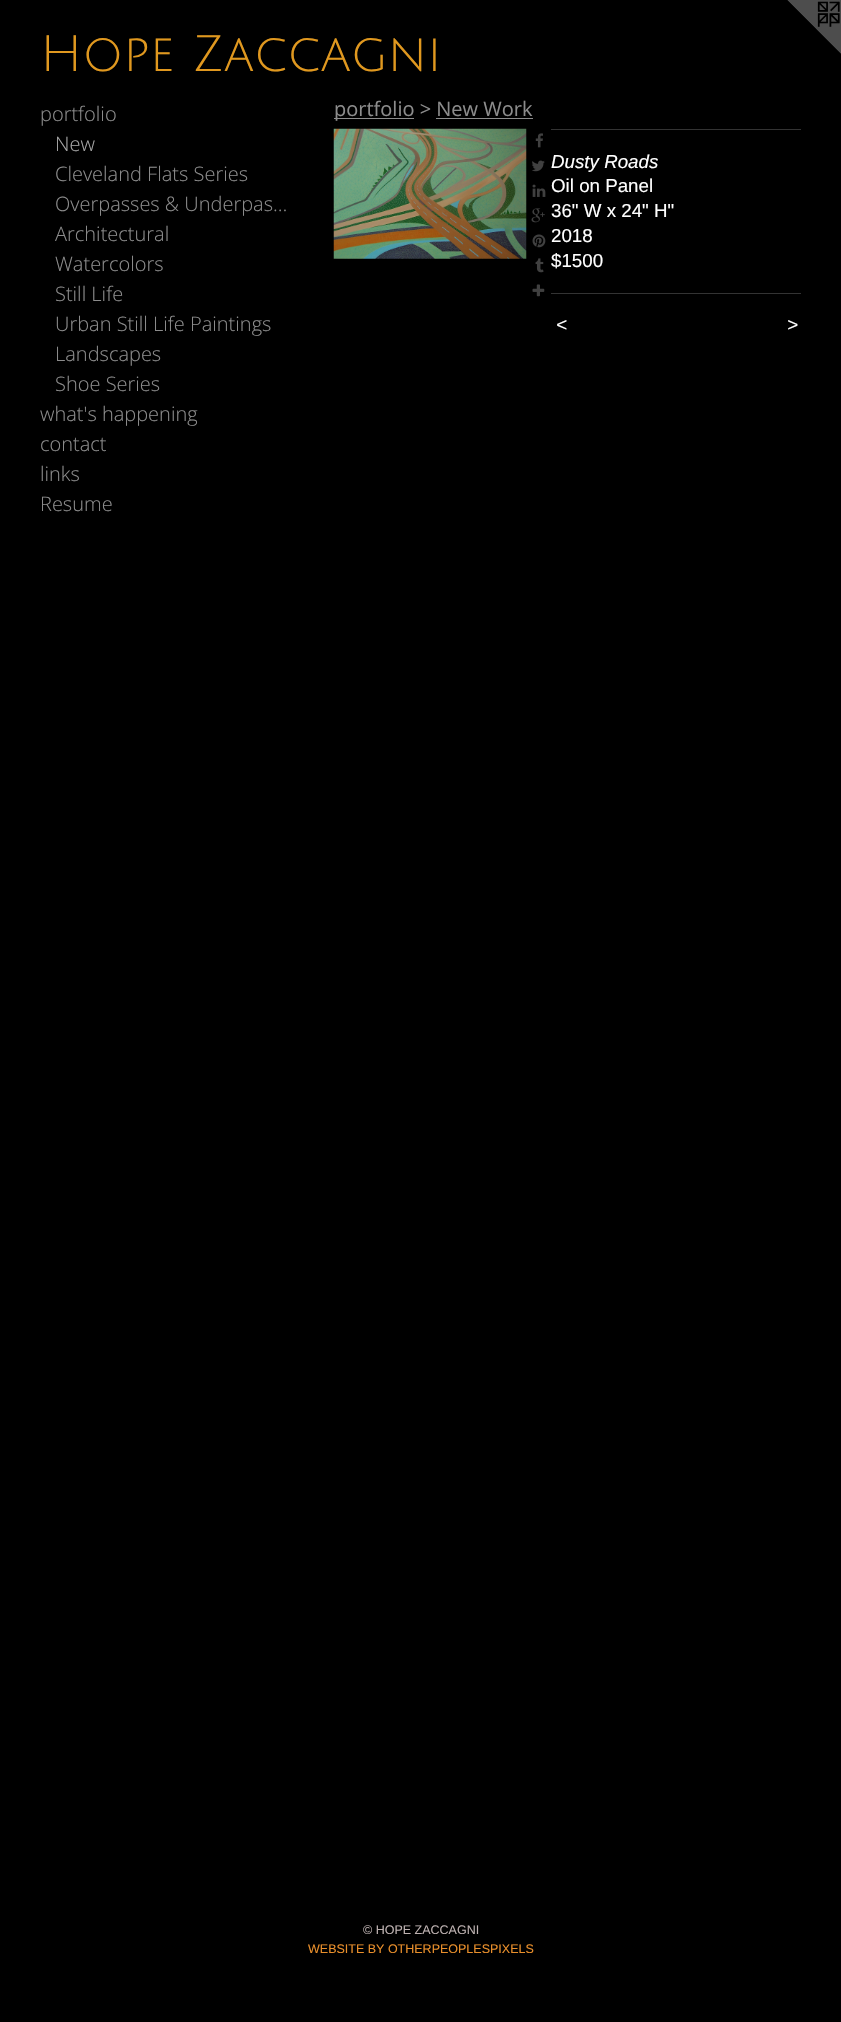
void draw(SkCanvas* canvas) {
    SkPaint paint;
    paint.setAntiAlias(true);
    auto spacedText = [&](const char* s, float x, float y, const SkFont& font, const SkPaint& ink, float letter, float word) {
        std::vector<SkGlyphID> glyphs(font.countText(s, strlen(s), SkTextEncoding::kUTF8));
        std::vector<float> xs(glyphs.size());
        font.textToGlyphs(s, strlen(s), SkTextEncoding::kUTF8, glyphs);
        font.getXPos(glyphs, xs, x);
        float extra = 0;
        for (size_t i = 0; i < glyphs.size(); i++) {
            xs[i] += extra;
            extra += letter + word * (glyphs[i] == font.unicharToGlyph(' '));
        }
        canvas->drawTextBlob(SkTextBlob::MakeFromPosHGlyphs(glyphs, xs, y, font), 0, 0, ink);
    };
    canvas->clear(0xFF000000);
    SkFont font1(fontMgr->matchFamilyStyle("Julius Sans One", SkFontStyle::Normal()), 50);
    font1.setSubpixel(true);
    paint.setColor(0xFFE0981F);
    canvas->drawString("Hope Zaccagni", 40, 71, font1, paint);
    canvas->drawImageRect(SkImages::DeferredFromEncodedData(SkData::MakeFromFileName("img1.png")), SkRect::MakeXYWH(787, 0, 54, 54), SkSamplingOptions());
    SkFont font2(fontMgr->matchFamilyStyle("Open Sans", SkFontStyle(300, SkFontStyle::kNormal_Width, SkFontStyle::kUpright_Slant)), 20);
    font2.setSubpixel(true);
    paint.setColor(0xFF8C8C8C);
    canvas->drawString("portfolio", 40, 121, font2, paint);
    paint.setColor(0xFFA6A6A6);
    canvas->drawString("New", 55, 151, font2, paint);
    paint.setColor(0xFF8C8C8C);
    canvas->drawString("Cleveland Flats Series", 55, 181, font2, paint);
    canvas->drawString("Overpasses & Underpas…", 55, 211, font2, paint);
    canvas->drawString("Architectural", 55, 241, font2, paint);
    canvas->drawString("Watercolors", 55, 271, font2, paint);
    canvas->drawString("Still Life", 55, 301, font2, paint);
    canvas->drawString("Urban Still Life Paintings", 55, 331, font2, paint);
    canvas->drawString("Landscapes", 55, 361, font2, paint);
    canvas->drawString("Shoe Series", 55, 391, font2, paint);
    canvas->drawString("what's happening", 40, 421, font2, paint);
    canvas->drawString("contact", 40, 451, font2, paint);
    canvas->drawString("links", 40, 481, font2, paint);
    canvas->drawString("Resume", 40, 511, font2, paint);
    canvas->drawRect(SkRect::MakeXYWH(334, 118, 80, 1), paint);
    SkFont font3(fontMgr->matchFamilyStyle("Open Sans", SkFontStyle::Normal()), 20);
    font3.setSubpixel(true);
    canvas->drawString("portfolio > New Work", 334, 116, font3, paint);
    canvas->drawRect(SkRect::MakeXYWH(436, 118, 97, 1), paint);
    canvas->drawImageRect(SkImages::DeferredFromEncodedData(SkData::MakeFromFileName("img2.png")), SkRect::MakeXYWH(333, 128, 194, 131), SkSamplingOptions());
    canvas->drawImageRect(SkImages::DeferredFromEncodedData(SkData::MakeFromFileName("img3.png")), SkRect::MakeXYWH(535, 133, 8, 15), SkSamplingOptions());
    canvas->drawImageRect(SkImages::DeferredFromEncodedData(SkData::MakeFromFileName("img4.png")), SkRect::MakeXYWH(532, 160, 13, 12), SkSamplingOptions());
    canvas->drawImageRect(SkImages::DeferredFromEncodedData(SkData::MakeFromFileName("img5.png")), SkRect::MakeXYWH(532, 184, 14, 13), SkSamplingOptions());
    canvas->drawImageRect(SkImages::DeferredFromEncodedData(SkData::MakeFromFileName("img6.png")), SkRect::MakeXYWH(531, 208, 14, 15), SkSamplingOptions());
    canvas->drawImageRect(SkImages::DeferredFromEncodedData(SkData::MakeFromFileName("img7.png")), SkRect::MakeXYWH(532, 234, 14, 14), SkSamplingOptions());
    canvas->drawImageRect(SkImages::DeferredFromEncodedData(SkData::MakeFromFileName("img8.png")), SkRect::MakeXYWH(535, 258, 9, 15), SkSamplingOptions());
    canvas->drawImageRect(SkImages::DeferredFromEncodedData(SkData::MakeFromFileName("img9.png")), SkRect::MakeXYWH(532, 284, 13, 13), SkSamplingOptions());
    paint.setColor(0xFF333333);
    canvas->drawRect(SkRect::MakeXYWH(551, 129, 250, 1), paint);
    SkFont font4(fontMgr->matchFamilyStyle("Liberation Sans", SkFontStyle::Italic()), 18.75f);
    font4.setSubpixel(true);
    paint.setColor(0xFFFFFFFF);
    canvas->drawString("Dusty Roads", 551, 168, font4, paint);
    SkFont font5(fontMgr->matchFamilyStyle("Liberation Sans", SkFontStyle::Normal()), 18.75f);
    font5.setSubpixel(true);
    canvas->drawString("Oil on Panel", 551, 192, font5, paint);
    canvas->drawString("36\" W x 24\" H\"", 551, 217, font5, paint);
    canvas->drawString("2018", 551, 242, font5, paint);
    canvas->drawString("$1500", 551, 267, font5, paint);
    paint.setColor(0xFF333333);
    canvas->drawRect(SkRect::MakeXYWH(551, 293, 250, 1), paint);
    paint.setColor(0xFFFFFFFF);
    spacedText("<", 556, 331, font4, paint, 1, 0);
    spacedText(">", 787, 331, font4, paint, 1, 0);
    SkFont font6(fontMgr->matchFamilyStyle("Liberation Sans", SkFontStyle::Normal()), 12.5f);
    font6.setSubpixel(true);
    paint.setColor(0xFFBEB2B1);
    canvas->drawString("© HOPE ZACCAGNI", 363, 1934, font6, paint);
    paint.setColor(0xFFE98F2B);
    canvas->drawString("WEBSITE BY OTHERPEOPLESPIXELS", 308, 1953, font6, paint);
}
